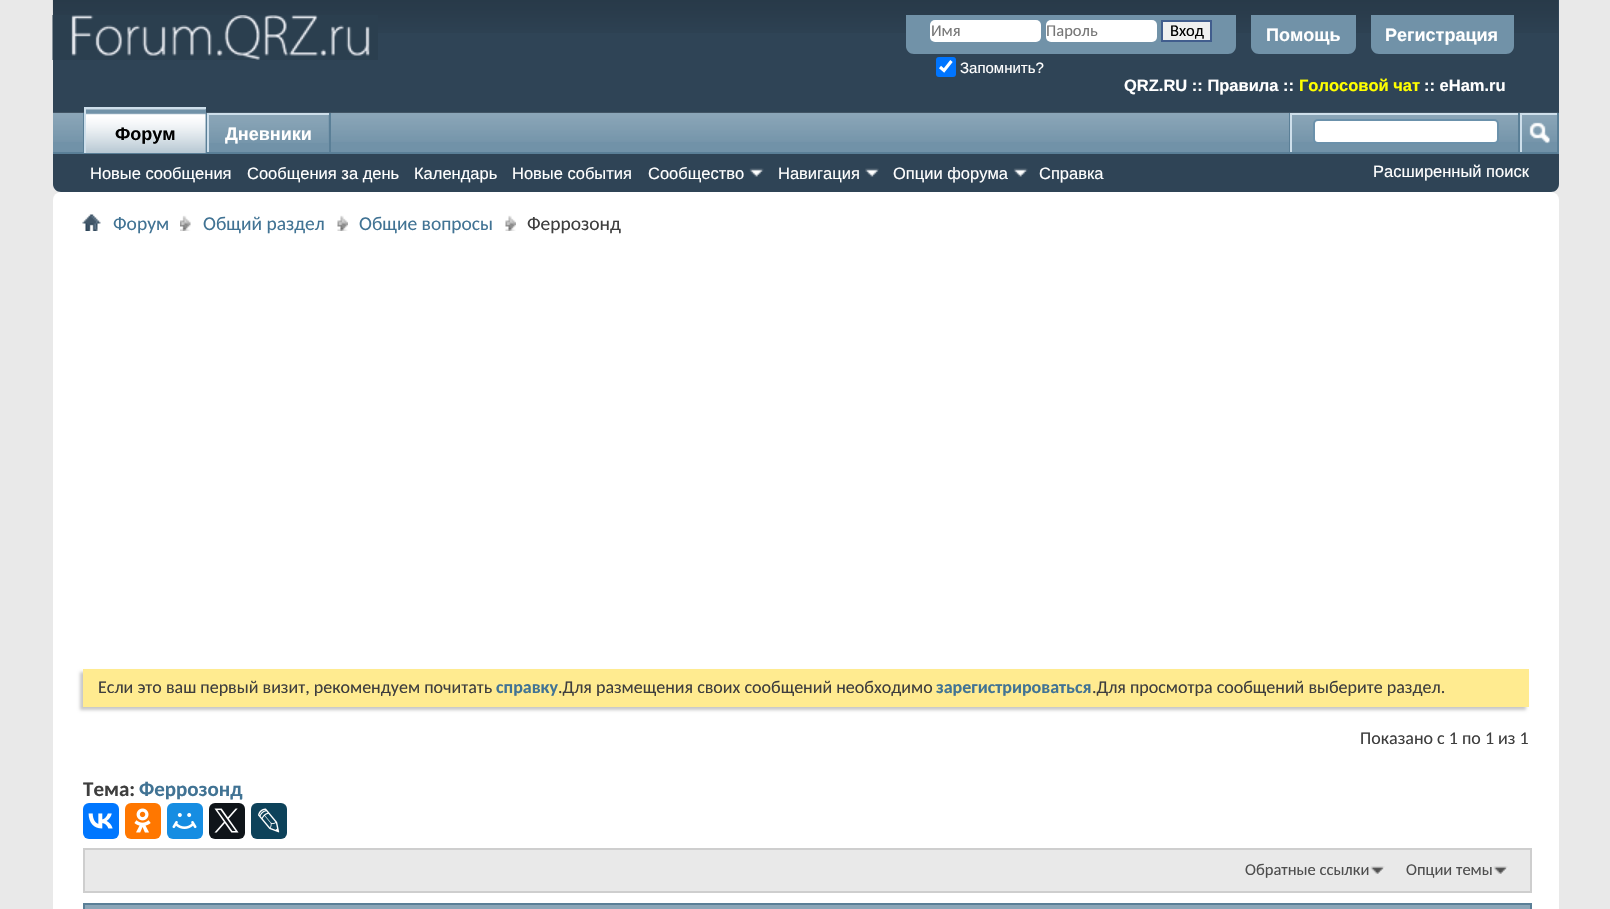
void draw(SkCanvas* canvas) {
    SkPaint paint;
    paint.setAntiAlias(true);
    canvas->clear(0xFFE9E9E9);
    paint.setColor(0xFF2F4456);
    canvas->drawPath(SkPathBuilder().moveTo(53, 0).lineTo(1559, 0).lineTo(1559, 184).cubicTo(1559, 188.5f, 1555.5f, 192, 1551, 192).lineTo(61, 192).cubicTo(56.5f, 192, 53, 188.5f, 53, 184).close().detach(), paint);
    canvas->drawImageRect(SkImages::DeferredFromEncodedData(SkData::MakeFromFileName("img1.png")), SkRect::MakeXYWH(52, 0, 1506, 33), SkSamplingOptions());
    canvas->drawImageRect(SkImages::DeferredFromEncodedData(SkData::MakeFromFileName("img2.png")), SkRect::MakeXYWH(52, 15, 326, 45), SkSamplingOptions());
    paint.setColor(0xFF7192A8);
    canvas->drawPath(SkPathBuilder().moveTo(906, 15).lineTo(1236, 15).lineTo(1236, 46).cubicTo(1236, 50.5f, 1232.5f, 54, 1228, 54).lineTo(914, 54).cubicTo(909.5f, 54, 906, 50.5f, 906, 46).close().detach(), paint);
    paint.setColor(0xFFFFFFFF);
    canvas->drawRoundRect(SkRect::MakeXYWH(930, 20, 111, 22), 5, 5, paint);
    SkFont font1(fontMgr->matchFamilyStyle("Carlito", SkFontStyle::Normal()), 16.5f);
    font1.setSubpixel(true);
    paint.setColor(0xFF777777);
    canvas->drawString("Имя", 931, 36, font1, paint);
    paint.setColor(0xFFFFFFFF);
    canvas->drawRoundRect(SkRect::MakeXYWH(1046, 20, 111, 22), 5, 5, paint);
    paint.setColor(0xFF777777);
    canvas->drawString("Пароль", 1046, 36, font1, paint);
    paint.setColor(0xFFEFEFEF);
    canvas->drawRect(SkRect::MakeXYWH(1162, 21, 49, 20), paint);
    paint.setStyle(SkPaint::kStroke_Style);
    paint.setStrokeWidth(2);
    paint.setColor(0xFF415D8D);
    canvas->drawRect(SkRect::MakeXYWH(1162, 21, 49, 20), paint);
    paint.setStyle(SkPaint::kFill_Style);
    paint.setColor(0xFF000000);
    canvas->drawString("Вход", 1170, 36, font1, paint);
    paint.setColor(0xFF0075FF);
    canvas->drawRoundRect(SkRect::MakeXYWH(936, 57, 20, 20), 3, 3, paint);
    paint.setStyle(SkPaint::kStroke_Style);
    paint.setStrokeWidth(3.1f);
    paint.setColor(0xFFFFFFFF);
    canvas->drawPath(SkPathBuilder().moveTo(940, 67).lineTo(944, 70.5f).lineTo(951.5f, 61).detach(), paint);
    SkFont font2(fontMgr->matchFamilyStyle("Liberation Sans", SkFontStyle::Normal()), 15);
    font2.setSubpixel(true);
    paint.setStyle(SkPaint::kFill_Style);
    canvas->drawString("Запомнить?", 960, 73, font2, paint);
    paint.setColor(0xFF7192A8);
    canvas->drawPath(SkPathBuilder().moveTo(1251, 15).lineTo(1356, 15).lineTo(1356, 46).cubicTo(1356, 50.5f, 1352.5f, 54, 1348, 54).lineTo(1259, 54).cubicTo(1254.5f, 54, 1251, 50.5f, 1251, 46).close().detach(), paint);
    SkFont font3(fontMgr->matchFamilyStyle("Liberation Sans", SkFontStyle::Bold()), 18);
    font3.setSubpixel(true);
    paint.setColor(0xFFFFFFFF);
    canvas->drawString("Помощь", 1266, 41, font3, paint);
    paint.setColor(0xFF7192A8);
    canvas->drawPath(SkPathBuilder().moveTo(1371, 15).lineTo(1514, 15).lineTo(1514, 46).cubicTo(1514, 50.5f, 1510.5f, 54, 1506, 54).lineTo(1379, 54).cubicTo(1374.5f, 54, 1371, 50.5f, 1371, 46).close().detach(), paint);
    paint.setColor(0xFFFFFFFF);
    canvas->drawString("Регистрация", 1385, 41, font3, paint);
    SkFont font4(fontMgr->matchFamilyStyle("Liberation Sans", SkFontStyle::Bold()), 16.5f);
    font4.setSubpixel(true);
    canvas->drawString("QRZ.RU :: Правила ::", 1124, 91, font4, paint);
    paint.setColor(0xFFFFFF00);
    canvas->drawString("Голосовой чат", 1299, 91, font4, paint);
    paint.setColor(0xFFFFFFFF);
    canvas->drawString(":: eHam.ru", 1424, 91, font4, paint);
    paint.setColor(0xFF7192A8);
    canvas->drawRect(SkRect::MakeXYWH(53, 113, 1504, 39), paint);
    canvas->drawImageRect(SkImages::DeferredFromEncodedData(SkData::MakeFromFileName("img3.png")), SkRect::MakeXYWH(53, 112, 1506, 30), SkSamplingOptions());
    paint.setColor(0xFF5A7F97);
    canvas->drawRect(SkRect::MakeXYWH(206, 113, 1, 39), paint);
    canvas->drawRect(SkRect::MakeXYWH(83, 113, 1, 39), paint);
    canvas->drawRect(SkRect::MakeXYWH(329, 113, 2, 40), paint);
    paint.setColor(0xFFCEDFEB);
    canvas->drawRect(SkRect::MakeXYWH(207, 113, 122, 2), paint);
    canvas->drawRect(SkRect::MakeXYWH(207, 113, 2, 40), paint);
    paint.setColor(0xFF5A7F97);
    canvas->drawRect(SkRect::MakeXYWH(53, 152, 1506, 2), paint);
    paint.setColor(0xFF7192A8);
    canvas->drawRect(SkRect::MakeXYWH(86, 109, 120, 44), paint);
    canvas->drawImageRect(SkImages::DeferredFromEncodedData(SkData::MakeFromFileName("img4.png")), SkRect::MakeXYWH(86, 109, 120, 44), SkSamplingOptions());
    paint.setColor(0xFFCEDFEB);
    canvas->drawRect(SkRect::MakeXYWH(84, 107, 122, 2), paint);
    canvas->drawRect(SkRect::MakeXYWH(84, 107, 2, 46), paint);
    paint.setColor(0xFF000000);
    canvas->drawString("Форум", 115, 140, font3, paint);
    paint.setColor(0xFF7192A8);
    canvas->drawRect(SkRect::MakeXYWH(209, 115, 120, 27), paint);
    canvas->drawImageRect(SkImages::DeferredFromEncodedData(SkData::MakeFromFileName("img5.png")), SkRect::MakeXYWH(209, 115, 120, 28), SkSamplingOptions());
    paint.setColor(0xFFFFFFFF);
    canvas->drawString("Дневники", 225, 140, font3, paint);
    SkFont font5(fontMgr->matchFamilyStyle("Liberation Sans", SkFontStyle::Normal()), 16.5f);
    font5.setSubpixel(true);
    canvas->drawString("Новые сообщения", 90, 179, font5, paint);
    canvas->drawString("Сообщения за день", 247, 179, font5, paint);
    canvas->drawString("Календарь", 414, 179, font5, paint);
    canvas->drawString("Новые события", 512, 179, font5, paint);
    canvas->drawString("Сообщество", 648, 179, font5, paint);
    canvas->drawImageRect(SkImages::DeferredFromEncodedData(SkData::MakeFromFileName("img6.png")), SkRect::MakeXYWH(749, 168, 15, 9), SkSamplingOptions());
    canvas->drawString("Навигация", 778, 179, font5, paint);
    canvas->drawImageRect(SkImages::DeferredFromEncodedData(SkData::MakeFromFileName("img7.png")), SkRect::MakeXYWH(865, 168, 14, 9), SkSamplingOptions());
    canvas->drawString("Опции форума", 893, 179, font5, paint);
    canvas->drawImageRect(SkImages::DeferredFromEncodedData(SkData::MakeFromFileName("img8.png")), SkRect::MakeXYWH(1013, 168, 15, 9), SkSamplingOptions());
    canvas->drawString("Справка", 1039, 179, font5, paint);
    paint.setColor(0xFF5A7F97);
    canvas->drawRect(SkRect::MakeXYWH(1289, 113, 1, 39), paint);
    paint.setColor(0xFFCEDFEB);
    canvas->drawRect(SkRect::MakeXYWH(1290, 113, 228, 2), paint);
    canvas->drawRect(SkRect::MakeXYWH(1290, 113, 2, 39), paint);
    paint.setColor(0xFFFFFFFF);
    canvas->drawRoundRect(SkRect::MakeXYWH(1314, 120, 184, 23), 4, 4, paint);
    paint.setStyle(SkPaint::kStroke_Style);
    paint.setStrokeWidth(2);
    paint.setColor(0xFF6B91AB);
    canvas->drawRoundRect(SkRect::MakeXYWH(1314, 120, 184, 23), 4, 4, paint);
    paint.setStyle(SkPaint::kFill_Style);
    paint.setColor(0xFF5A7F97);
    canvas->drawRect(SkRect::MakeXYWH(1557, 113, 2, 39), paint);
    canvas->drawRect(SkRect::MakeXYWH(1518, 113, 2, 39), paint);
    paint.setColor(0xFFCEDFEB);
    canvas->drawRect(SkRect::MakeXYWH(1520, 113, 37, 2), paint);
    canvas->drawRect(SkRect::MakeXYWH(1520, 113, 2, 39), paint);
    canvas->drawImageRect(SkImages::DeferredFromEncodedData(SkData::MakeFromFileName("img9.png")), SkRect::MakeXYWH(1529, 122, 21, 22), SkSamplingOptions());
    paint.setColor(0xFFFFFFFF);
    canvas->drawString("Расширенный поиск", 1373, 177, font5, paint);
    canvas->drawRoundRect(SkRect::MakeXYWH(53, 192, 1506, 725), 8, 8, paint);
    canvas->drawImageRect(SkImages::DeferredFromEncodedData(SkData::MakeFromFileName("img10.png")), SkRect::MakeXYWH(82, 214, 19, 17), SkSamplingOptions());
    canvas->drawImageRect(SkImages::DeferredFromEncodedData(SkData::MakeFromFileName("img11.png")), SkRect::MakeXYWH(180, 215, 11, 16), SkSamplingOptions());
    SkFont font6(fontMgr->matchFamilyStyle("Carlito", SkFontStyle::Normal()), 19.5f);
    font6.setSubpixel(true);
    paint.setColor(0xFF417394);
    canvas->drawString("Форум", 113, 230, font6, paint);
    canvas->drawImageRect(SkImages::DeferredFromEncodedData(SkData::MakeFromFileName("img12.png")), SkRect::MakeXYWH(337, 215, 11, 16), SkSamplingOptions());
    canvas->drawString("Общий раздел", 203, 230, font6, paint);
    canvas->drawImageRect(SkImages::DeferredFromEncodedData(SkData::MakeFromFileName("img12.png")), SkRect::MakeXYWH(505, 215, 11, 16), SkSamplingOptions());
    canvas->drawString("Общие вопросы", 359, 230, font6, paint);
    paint.setColor(0xFF3E3E3E);
    canvas->drawString("Феррозонд", 527, 230, font6, paint);
    paint.setColor(0xFFC8C8C8);
    paint.setMaskFilter(SkMaskFilter::MakeBlur(kNormal_SkBlurStyle, 1.5f));
    canvas->drawRect(SkRect::MakeXYWH(80, 672, 1446, 38), paint);
    paint.setMaskFilter(nullptr);
    paint.setColor(0xFFFFEB90);
    canvas->drawRect(SkRect::MakeXYWH(83, 669, 1446, 38), paint);
    SkFont font7(fontMgr->matchFamilyStyle("Carlito", SkFontStyle::Normal()), 18);
    font7.setSubpixel(true);
    paint.setColor(0xFF3E3E3E);
    canvas->drawString("Если это ваш первый визит, рекомендуем почитать", 98, 693, font7, paint);
    SkFont font8(fontMgr->matchFamilyStyle("Carlito", SkFontStyle::Bold()), 18);
    font8.setSubpixel(true);
    paint.setColor(0xFF417394);
    canvas->drawString("справку", 496, 693, font8, paint);
    paint.setColor(0xFF3E3E3E);
    canvas->drawString(".Для размещения своих сообщений необходимо", 558, 693, font7, paint);
    paint.setColor(0xFF417394);
    canvas->drawString("зарегистрироваться", 936, 693, font8, paint);
    paint.setColor(0xFF3E3E3E);
    canvas->drawString(".Для просмотра сообщений выберите раздел.", 1092, 693, font7, paint);
    canvas->drawString("Показано с 1 по 1 из 1", 1360, 744, font7, paint);
    SkFont font9(fontMgr->matchFamilyStyle("Carlito", SkFontStyle::Bold()), 21);
    font9.setSubpixel(true);
    canvas->drawString("Тема:", 83, 796, font9, paint);
    paint.setColor(0xFF417394);
    canvas->drawString("Феррозонд", 139, 796, font9, paint);
    paint.setColor(0xFF0077FF);
    canvas->drawRoundRect(SkRect::MakeXYWH(83, 803, 36, 36), 6, 6, paint);
    canvas->drawImageRect(SkImages::DeferredFromEncodedData(SkData::MakeFromFileName("img13.png")), SkRect::MakeXYWH(88, 813, 25, 16), SkSamplingOptions());
    paint.setColor(0xFFFF7700);
    canvas->drawRoundRect(SkRect::MakeXYWH(125, 803, 36, 36), 6, 6, paint);
    canvas->drawImageRect(SkImages::DeferredFromEncodedData(SkData::MakeFromFileName("img14.png")), SkRect::MakeXYWH(134, 808, 17, 25), SkSamplingOptions());
    paint.setColor(0xFF168DE2);
    canvas->drawRoundRect(SkRect::MakeXYWH(167, 803, 36, 36), 6, 6, paint);
    canvas->drawImageRect(SkImages::DeferredFromEncodedData(SkData::MakeFromFileName("img15.png")), SkRect::MakeXYWH(172, 813, 25, 16), SkSamplingOptions());
    paint.setColor(0xFF0F1419);
    canvas->drawRoundRect(SkRect::MakeXYWH(209, 803, 36, 36), 6, 6, paint);
    canvas->drawImageRect(SkImages::DeferredFromEncodedData(SkData::MakeFromFileName("img16.png")), SkRect::MakeXYWH(214, 808, 25, 25), SkSamplingOptions());
    paint.setColor(0xFF0D425A);
    canvas->drawRoundRect(SkRect::MakeXYWH(251, 803, 36, 36), 6, 6, paint);
    canvas->drawImageRect(SkImages::DeferredFromEncodedData(SkData::MakeFromFileName("img17.png")), SkRect::MakeXYWH(258, 808, 22, 25), SkSamplingOptions());
    paint.setColor(0xFFE9E9E9);
    canvas->drawRect(SkRect::MakeXYWH(84, 849, 1447, 43), paint);
    paint.setStyle(SkPaint::kStroke_Style);
    paint.setColor(0xFFCECECE);
    canvas->drawRect(SkRect::MakeXYWH(84, 849, 1447, 43), paint);
    canvas->drawImageRect(SkImages::DeferredFromEncodedData(SkData::MakeFromFileName("img18.png")), SkRect::MakeXYWH(1370, 866, 15, 8), SkSamplingOptions());
    paint.setStyle(SkPaint::kFill_Style);
    paint.setColor(0xFF4E4E4E);
    canvas->drawString("Обратные ссылки", 1245, 875, font1, paint);
    canvas->drawImageRect(SkImages::DeferredFromEncodedData(SkData::MakeFromFileName("img18.png")), SkRect::MakeXYWH(1493, 866, 15, 8), SkSamplingOptions());
    canvas->drawString("Опции темы", 1406, 875, font1, paint);
    paint.setColor(0xFF8BA6B8);
    canvas->drawRect(SkRect::MakeXYWH(84, 904, 1447, 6), paint);
    paint.setStyle(SkPaint::kStroke_Style);
    paint.setColor(0xFF5A7F97);
    canvas->drawRect(SkRect::MakeXYWH(84, 904, 1447, 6), paint);
}
